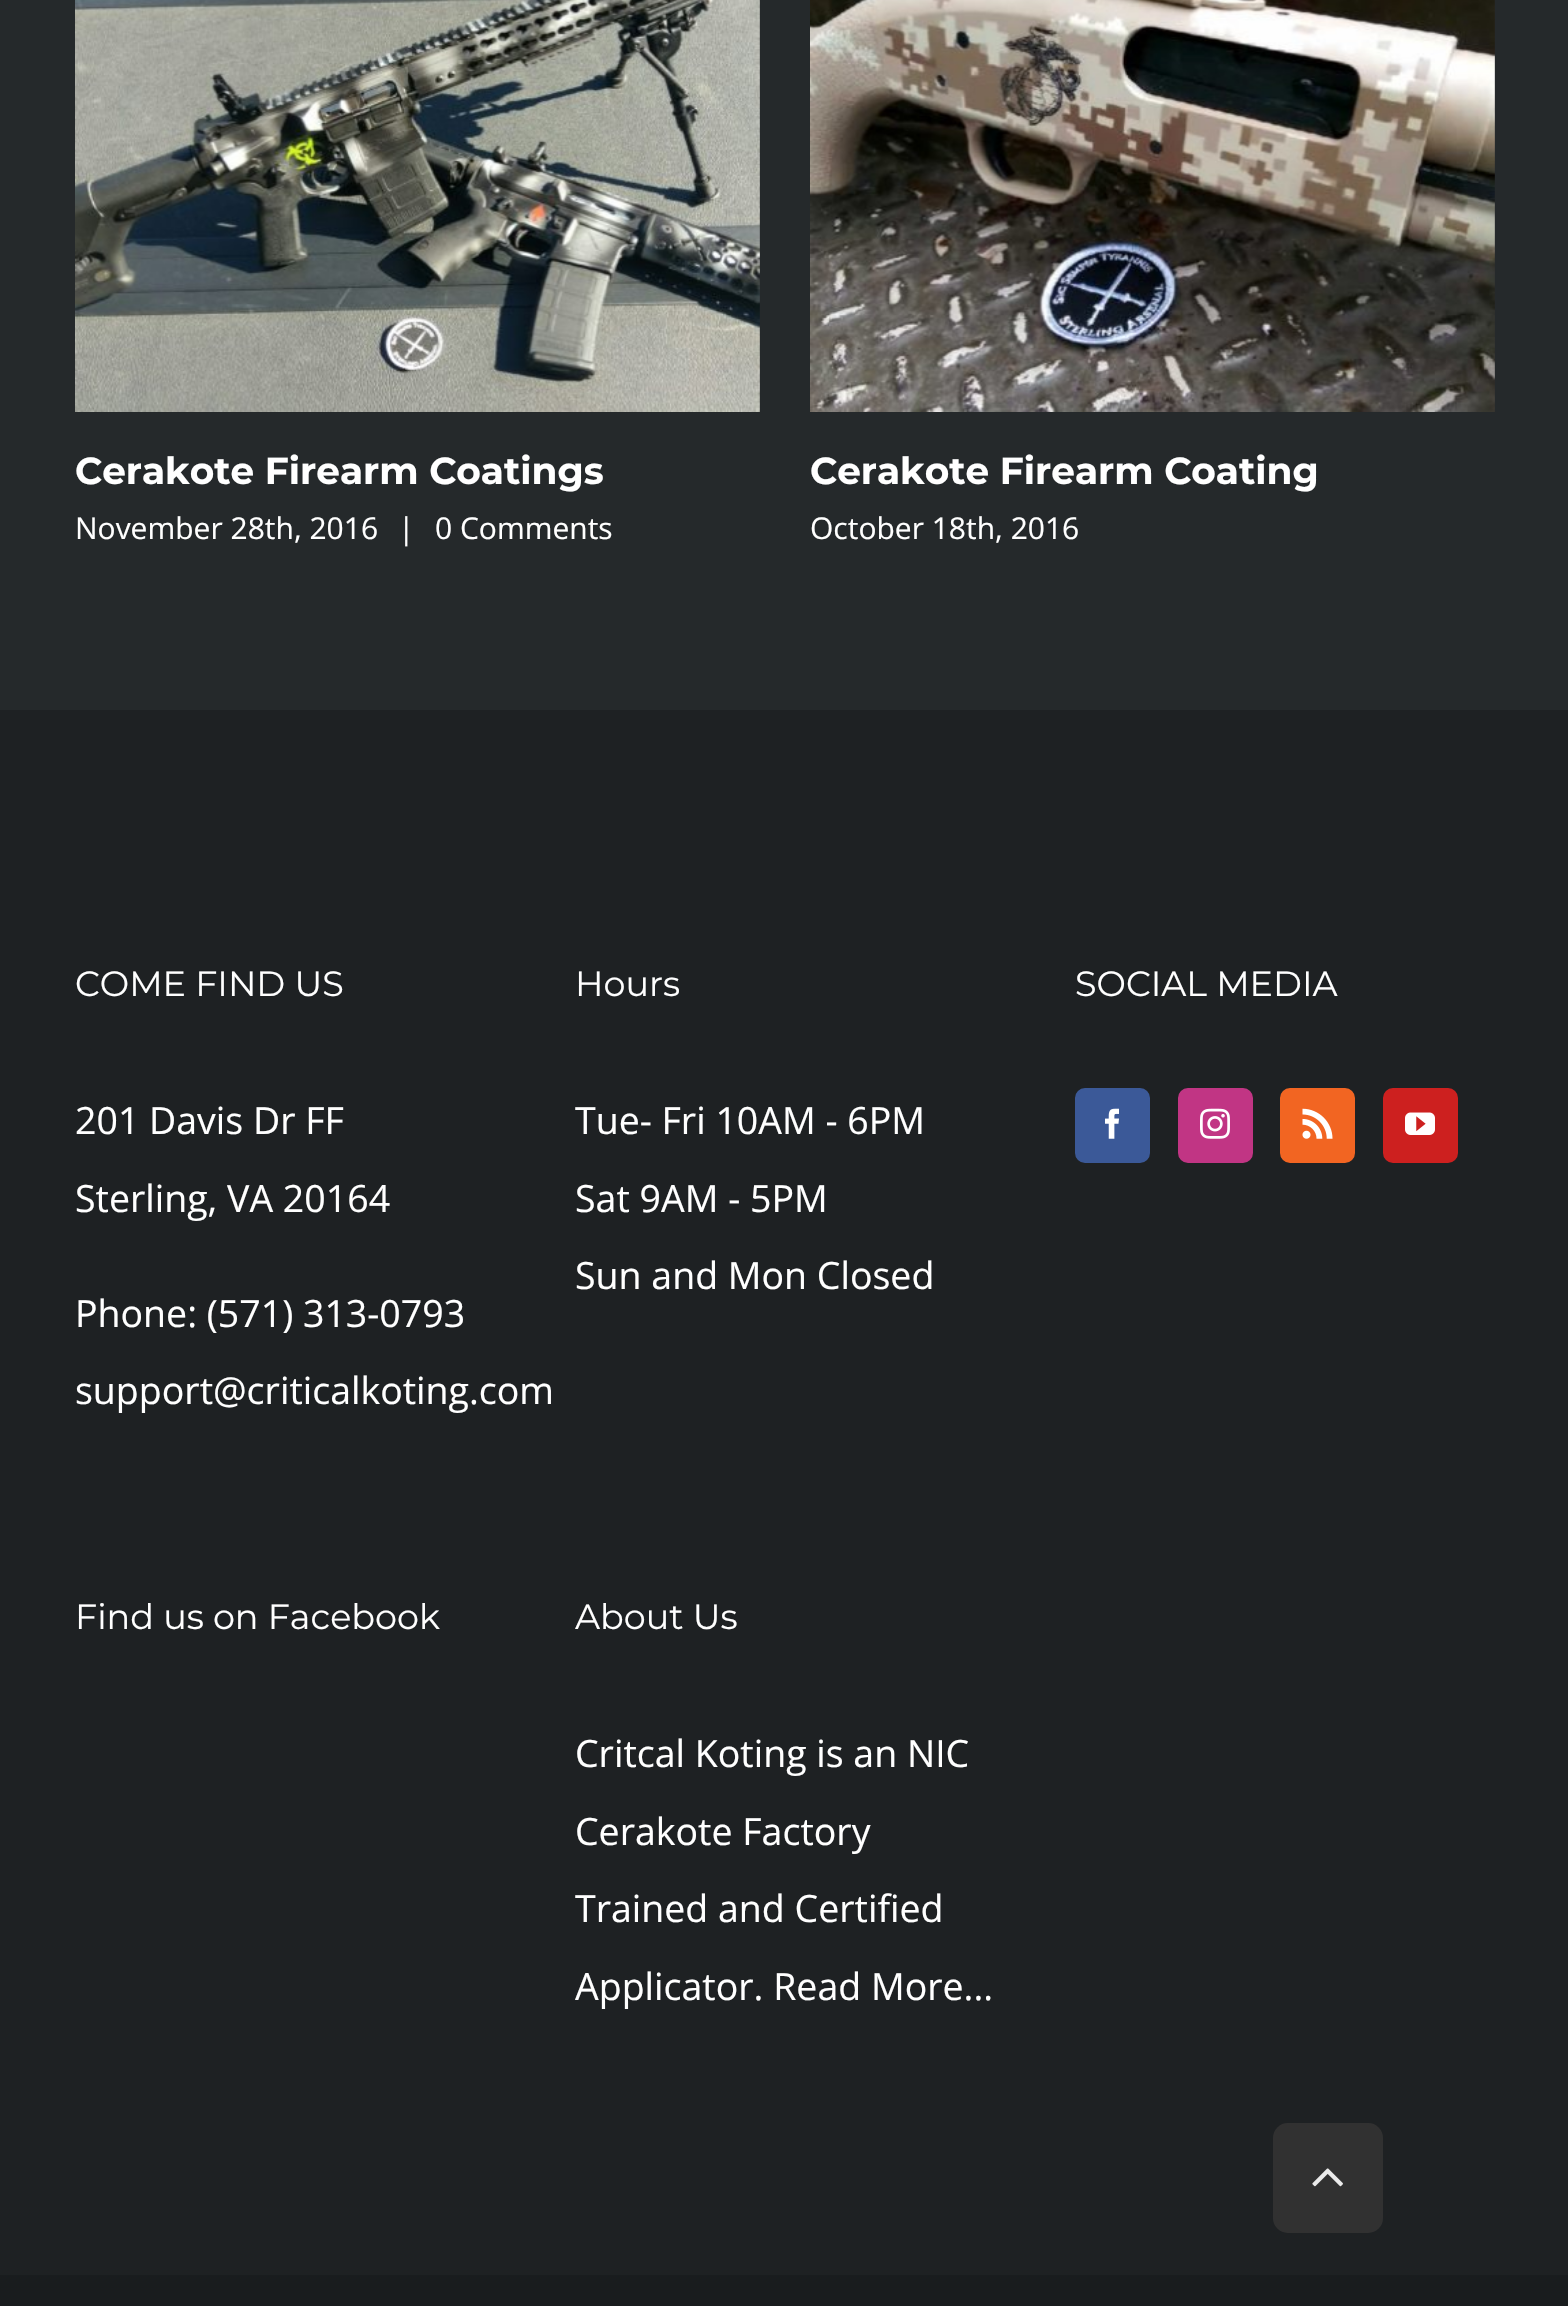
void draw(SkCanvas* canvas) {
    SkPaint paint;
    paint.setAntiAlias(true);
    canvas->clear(0xFF25292B);
    canvas->drawImageRect(SkImages::DeferredFromEncodedData(SkData::MakeFromFileName("img1.png")), SkRect::MakeXYWH(75, 0, 685, 412), SkSamplingOptions());
    SkFont font1(fontMgr->matchFamilyStyle("Montserrat", SkFontStyle::Bold()), 37.5f);
    font1.setSubpixel(true);
    paint.setColor(0xFFFFFFFF);
    canvas->drawString("Cerakote Firearm Coatings", 75, 484, font1, paint);
    SkFont font2(fontMgr->matchFamilyStyle("Open Sans", SkFontStyle::Normal()), 30);
    font2.setSubpixel(true);
    canvas->drawString("November 28th, 2016", 75, 539, font2, paint);
    canvas->drawString("|", 398, 539, font2, paint);
    canvas->drawString("0 Comments", 435, 539, font2, paint);
    canvas->drawImageRect(SkImages::DeferredFromEncodedData(SkData::MakeFromFileName("img2.png")), SkRect::MakeXYWH(810, 0, 685, 412), SkSamplingOptions());
    canvas->drawString("Cerakote Firearm Coating", 810, 484, font1, paint);
    canvas->drawString("October 18th, 2016", 810, 539, font2, paint);
    paint.setColor(0xFF1E2123);
    canvas->drawRect(SkRect::MakeXYWH(0, 710, 1568, 1565), paint);
    SkFont font3(fontMgr->matchFamilyStyle("Montserrat", SkFontStyle::Normal()), 35);
    font3.setSubpixel(true);
    paint.setColor(0xFFFFFFFF);
    canvas->drawString("COME FIND US", 75, 996, font3, paint);
    SkFont font4(fontMgr->matchFamilyStyle("Open Sans", SkFontStyle::Normal()), 37.5f);
    font4.setSubpixel(true);
    canvas->drawString("201 Davis Dr FF", 75, 1134, font4, paint);
    canvas->drawString("Sterling, VA 20164", 75, 1212, font4, paint);
    canvas->drawString("Phone: (571) 313-0793", 75, 1327, font4, paint);
    canvas->drawString("support@criticalkoting.com", 75, 1404, font4, paint);
    canvas->drawString("Hours", 575, 996, font3, paint);
    canvas->drawString("Tue- Fri 10AM - 6PM", 575, 1134, font4, paint);
    canvas->drawString("Sat 9AM - 5PM", 575, 1212, font4, paint);
    canvas->drawString("Sun and Mon Closed", 575, 1289, font4, paint);
    canvas->drawString("SOCIAL MEDIA", 1075, 996, font3, paint);
    paint.setColor(0xFF3B5998);
    canvas->drawRoundRect(SkRect::MakeXYWH(1076.5f, 1089.5f, 72, 72), 8.5f, 8.5f, paint);
    paint.setStyle(SkPaint::kStroke_Style);
    paint.setStrokeWidth(3);
    canvas->drawRoundRect(SkRect::MakeXYWH(1076.5f, 1089.5f, 72, 72), 8.5f, 8.5f, paint);
    canvas->drawImageRect(SkImages::DeferredFromEncodedData(SkData::MakeFromFileName("img3.png")), SkRect::MakeXYWH(1105, 1108, 14, 31), SkSamplingOptions());
    paint.setStyle(SkPaint::kFill_Style);
    paint.setColor(0xFFC13584);
    canvas->drawRoundRect(SkRect::MakeXYWH(1179.5f, 1089.5f, 72, 72), 8.5f, 8.5f, paint);
    paint.setStyle(SkPaint::kStroke_Style);
    canvas->drawRoundRect(SkRect::MakeXYWH(1179.5f, 1089.5f, 72, 72), 8.5f, 8.5f, paint);
    canvas->drawImageRect(SkImages::DeferredFromEncodedData(SkData::MakeFromFileName("img4.png")), SkRect::MakeXYWH(1200, 1108, 30, 31), SkSamplingOptions());
    paint.setStyle(SkPaint::kFill_Style);
    paint.setColor(0xFFF26522);
    canvas->drawRoundRect(SkRect::MakeXYWH(1281.5f, 1089.5f, 72, 72), 8.5f, 8.5f, paint);
    paint.setStyle(SkPaint::kStroke_Style);
    canvas->drawRoundRect(SkRect::MakeXYWH(1281.5f, 1089.5f, 72, 72), 8.5f, 8.5f, paint);
    canvas->drawImageRect(SkImages::DeferredFromEncodedData(SkData::MakeFromFileName("img5.png")), SkRect::MakeXYWH(1302, 1108, 31, 31), SkSamplingOptions());
    paint.setStyle(SkPaint::kFill_Style);
    paint.setColor(0xFFCD201F);
    canvas->drawRoundRect(SkRect::MakeXYWH(1384.5f, 1089.5f, 72, 72), 8.5f, 8.5f, paint);
    paint.setStyle(SkPaint::kStroke_Style);
    canvas->drawRoundRect(SkRect::MakeXYWH(1384.5f, 1089.5f, 72, 72), 8.5f, 8.5f, paint);
    canvas->drawImageRect(SkImages::DeferredFromEncodedData(SkData::MakeFromFileName("img6.png")), SkRect::MakeXYWH(1405, 1112, 30, 23), SkSamplingOptions());
    paint.setStyle(SkPaint::kFill_Style);
    paint.setColor(0xFFFFFFFF);
    canvas->drawString("Find us on Facebook", 75, 1629, font3, paint);
    canvas->drawString("About Us", 575, 1629, font3, paint);
    canvas->drawString("Critcal Koting is an NIC", 575, 1767, font4, paint);
    canvas->drawString("Cerakote Factory", 575, 1845, font4, paint);
    canvas->drawString("Trained and Certified", 575, 1922, font4, paint);
    canvas->drawString("Applicator. Read More...", 575, 2000, font4, paint);
    paint.setColor(0xFF191C1E);
    canvas->drawRect(SkRect::MakeXYWH(0, 2275, 1568, 31), paint);
    paint.setColor(0xFF313131);
    canvas->drawRoundRect(SkRect::MakeXYWH(1273, 2123, 110, 110), 15, 15, paint);
    canvas->drawImageRect(SkImages::DeferredFromEncodedData(SkData::MakeFromFileName("img7.png")), SkRect::MakeXYWH(1312, 2168, 31, 19), SkSamplingOptions());
}
